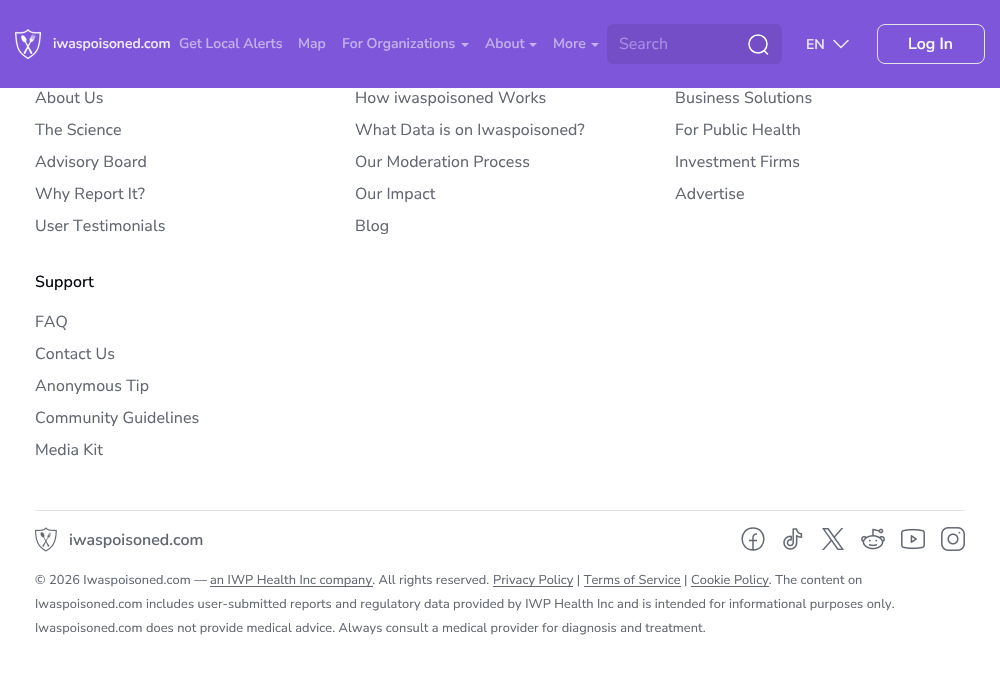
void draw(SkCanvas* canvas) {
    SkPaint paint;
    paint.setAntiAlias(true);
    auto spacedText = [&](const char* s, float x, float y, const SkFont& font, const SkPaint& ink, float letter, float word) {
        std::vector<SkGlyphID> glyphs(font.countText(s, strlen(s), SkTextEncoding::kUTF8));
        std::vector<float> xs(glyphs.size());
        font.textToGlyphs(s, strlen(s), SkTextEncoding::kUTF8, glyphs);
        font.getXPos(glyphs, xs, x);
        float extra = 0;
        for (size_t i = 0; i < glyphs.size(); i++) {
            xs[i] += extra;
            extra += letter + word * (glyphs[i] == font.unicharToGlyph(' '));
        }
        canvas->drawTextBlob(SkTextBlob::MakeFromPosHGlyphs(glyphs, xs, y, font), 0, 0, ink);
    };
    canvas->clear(0xFFFFFFFF);
    paint.setColor(0xFF7E56DA);
    canvas->drawRect(SkRect::MakeXYWH(0, 0, 1000, 88), paint);
    canvas->drawImageRect(SkImages::DeferredFromEncodedData(SkData::MakeFromFileName("img1.png")), SkRect::MakeXYWH(15, 29, 26, 30), SkSamplingOptions());
    SkFont font1(fontMgr->matchFamilyStyle("Nunito Sans", SkFontStyle(600, SkFontStyle::kNormal_Width, SkFontStyle::kUpright_Slant)), 14);
    font1.setSubpixel(true);
    paint.setColor(0xFFF2EEFB);
    canvas->drawString("iwaspoisoned.com", 53, 48, font1, paint);
    paint.setColor(0xFFC4B1EE);
    canvas->drawString("Get Local Alerts", 179, 48, font1, paint);
    canvas->drawString("Map", 298, 48, font1, paint);
    canvas->drawString("For Organizations", 342, 48, font1, paint);
    canvas->drawPath(SkPathBuilder().moveTo(461, 43).lineTo(469, 43).lineTo(465, 47).close().detach(), paint);
    canvas->drawString("About", 485, 48, font1, paint);
    canvas->drawPath(SkPathBuilder().moveTo(529, 43).lineTo(537, 43).lineTo(533, 47).close().detach(), paint);
    canvas->drawString("More", 553, 48, font1, paint);
    canvas->drawPath(SkPathBuilder().moveTo(591, 43).lineTo(599, 43).lineTo(595, 47).close().detach(), paint);
    paint.setColor(0xFF734EC6);
    canvas->drawRoundRect(SkRect::MakeXYWH(607.5f, 24.5f, 174, 39), 5.5f, 5.5f, paint);
    paint.setStyle(SkPaint::kStroke_Style);
    paint.setStrokeWidth(1);
    canvas->drawRoundRect(SkRect::MakeXYWH(607.5f, 24.5f, 174, 39), 5.5f, 5.5f, paint);
    SkFont font2(fontMgr->matchFamilyStyle("Nunito Sans", SkFontStyle::Normal()), 16);
    font2.setSubpixel(true);
    paint.setStyle(SkPaint::kFill_Style);
    paint.setColor(0xFFA98EE6);
    canvas->drawString("Search", 619, 49, font2, paint);
    paint.setStyle(SkPaint::kStroke_Style);
    paint.setStrokeWidth(1.5f);
    paint.setColor(0xFFFFFFFF);
    canvas->drawCircle(758, 44, 9, paint);
    paint.setStrokeCap(SkPaint::kRound_Cap);
    paint.setStrokeJoin(SkPaint::kRound_Join);
    canvas->drawPath(SkPathBuilder().moveTo(764, 50.5f).lineTo(767.5f, 54).detach(), paint);
    paint.setStyle(SkPaint::kFill_Style);
    paint.setColor(0xFFF2EEFB);
    canvas->drawString("EN", 806, 49, font1, paint);
    paint.setStyle(SkPaint::kStroke_Style);
    canvas->drawPath(SkPathBuilder().moveTo(848, 40.5f).lineTo(841, 47.5f).lineTo(834, 40.5f).detach(), paint);
    paint.setStrokeWidth(1);
    paint.setStrokeCap(SkPaint::kButt_Cap);
    paint.setStrokeJoin(SkPaint::kMiter_Join);
    paint.setColor(0xFFE2E4E6);
    canvas->drawRoundRect(SkRect::MakeXYWH(877.5f, 24.5f, 107, 39), 7.5f, 7.5f, paint);
    SkFont font3(fontMgr->matchFamilyStyle("Nunito Sans", SkFontStyle(600, SkFontStyle::kNormal_Width, SkFontStyle::kUpright_Slant)), 16);
    font3.setSubpixel(true);
    paint.setStyle(SkPaint::kFill_Style);
    paint.setColor(0xFFFFFFFF);
    canvas->drawString("Log In", 908, 49, font3, paint);
    paint.setColor(0xFF616670);
    spacedText("About Us", 35, 103, font2, paint, 0.08f, 0);
    spacedText("The Science", 35, 135, font2, paint, 0.08f, 0);
    spacedText("Advisory Board", 35, 167, font2, paint, 0.08f, 0);
    spacedText("Why Report It?", 35, 199, font2, paint, 0.08f, 0);
    spacedText("User Testimonials", 35, 231, font2, paint, 0.08f, 0);
    spacedText("How iwaspoisoned Works", 355, 103, font2, paint, 0.08f, 0);
    spacedText("What Data is on Iwaspoisoned?", 355, 135, font2, paint, 0.08f, 0);
    spacedText("Our Moderation Process", 355, 167, font2, paint, 0.08f, 0);
    spacedText("Our Impact", 355, 199, font2, paint, 0.08f, 0);
    spacedText("Blog", 355, 231, font2, paint, 0.08f, 0);
    spacedText("Business Solutions", 675, 103, font2, paint, 0.08f, 0);
    spacedText("For Public Health", 675, 135, font2, paint, 0.08f, 0);
    spacedText("Investment Firms", 675, 167, font2, paint, 0.08f, 0);
    spacedText("Advertise", 675, 199, font2, paint, 0.08f, 0);
    SkFont font4(fontMgr->matchFamilyStyle("Nunito Sans", SkFontStyle(500, SkFontStyle::kNormal_Width, SkFontStyle::kUpright_Slant)), 16);
    font4.setSubpixel(true);
    paint.setColor(0xFF080B11);
    spacedText("Support", 35, 287, font4, paint, 0.08f, 0);
    paint.setColor(0xFF616670);
    spacedText("FAQ", 35, 327, font2, paint, 0.08f, 0);
    spacedText("Contact Us", 35, 359, font2, paint, 0.08f, 0);
    spacedText("Anonymous Tip", 35, 391, font2, paint, 0.08f, 0);
    spacedText("Community Guidelines", 35, 423, font2, paint, 0.08f, 0);
    spacedText("Media Kit", 35, 455, font2, paint, 0.08f, 0);
    paint.setColor(0xFFE2E4E6);
    canvas->drawRect(SkRect::MakeXYWH(35, 510, 930, 1), paint);
    canvas->drawImageRect(SkImages::DeferredFromEncodedData(SkData::MakeFromFileName("img2.png")), SkRect::MakeXYWH(35, 527, 22, 25), SkSamplingOptions());
    paint.setColor(0xFF616670);
    canvas->drawString("iwaspoisoned.com", 69, 545, font3, paint);
    paint.setStyle(SkPaint::kStroke_Style);
    paint.setStrokeWidth(1.5f);
    paint.setStrokeJoin(SkPaint::kRound_Join);
    canvas->drawPath(SkPathBuilder().moveTo(753, 550).cubicTo(738.5f, 550, 738.5f, 528, 753, 528).cubicTo(767.5f, 528, 767.5f, 550, 753, 550).close().moveTo(753, 550).lineTo(753, 541.5f).cubicTo(753, 538, 752, 534, 757, 534).moveTo(749, 540.5f).lineTo(757, 540.5f).detach(), paint);
    canvas->drawImageRect(SkImages::DeferredFromEncodedData(SkData::MakeFromFileName("img3.png")), SkRect::MakeXYWH(783, 528, 20, 22), SkSamplingOptions());
    canvas->drawImageRect(SkImages::DeferredFromEncodedData(SkData::MakeFromFileName("img4.png")), SkRect::MakeXYWH(822, 528, 22, 22), SkSamplingOptions());
    canvas->drawImageRect(SkImages::DeferredFromEncodedData(SkData::MakeFromFileName("img5.png")), SkRect::MakeXYWH(861, 528, 24, 22), SkSamplingOptions());
    canvas->drawImageRect(SkImages::DeferredFromEncodedData(SkData::MakeFromFileName("img6.png")), SkRect::MakeXYWH(901, 528, 24, 22), SkSamplingOptions());
    canvas->drawImageRect(SkImages::DeferredFromEncodedData(SkData::MakeFromFileName("img7.png")), SkRect::MakeXYWH(941, 527, 24, 24), SkSamplingOptions());
    SkFont font5(fontMgr->matchFamilyStyle("Nunito Sans", SkFontStyle::Normal()), 12.8f);
    font5.setSubpixel(true);
    paint.setStyle(SkPaint::kFill_Style);
    spacedText("© 2026 Iwaspoisoned.com —", 35, 584, font5, paint, 0.08f, 0);
    canvas->drawRect(SkRect::MakeXYWH(210, 586, 163, 1), paint);
    spacedText("an IWP Health Inc company. All rights reserved.", 210, 584, font5, paint, 0.08f, 0);
    canvas->drawRect(SkRect::MakeXYWH(493, 586, 80, 1), paint);
    spacedText("Privacy Policy | Terms of Service |", 493, 584, font5, paint, 0.08f, 0);
    canvas->drawRect(SkRect::MakeXYWH(691, 586, 78, 1), paint);
    spacedText("Cookie Policy. The content on", 691, 584, font5, paint, 0.08f, 0);
    canvas->drawRect(SkRect::MakeXYWH(584, 586, 97, 1), paint);
    spacedText("Iwaspoisoned.com includes user-submitted reports and regulatory data provided by IWP Health Inc and is intended for informational purposes only.", 35, 608, font5, paint, 0.08f, 0);
    spacedText("Iwaspoisoned.com does not provide medical advice. Always consult a medical provider for diagnosis and treatment.", 35, 632, font5, paint, 0.08f, 0);
}
